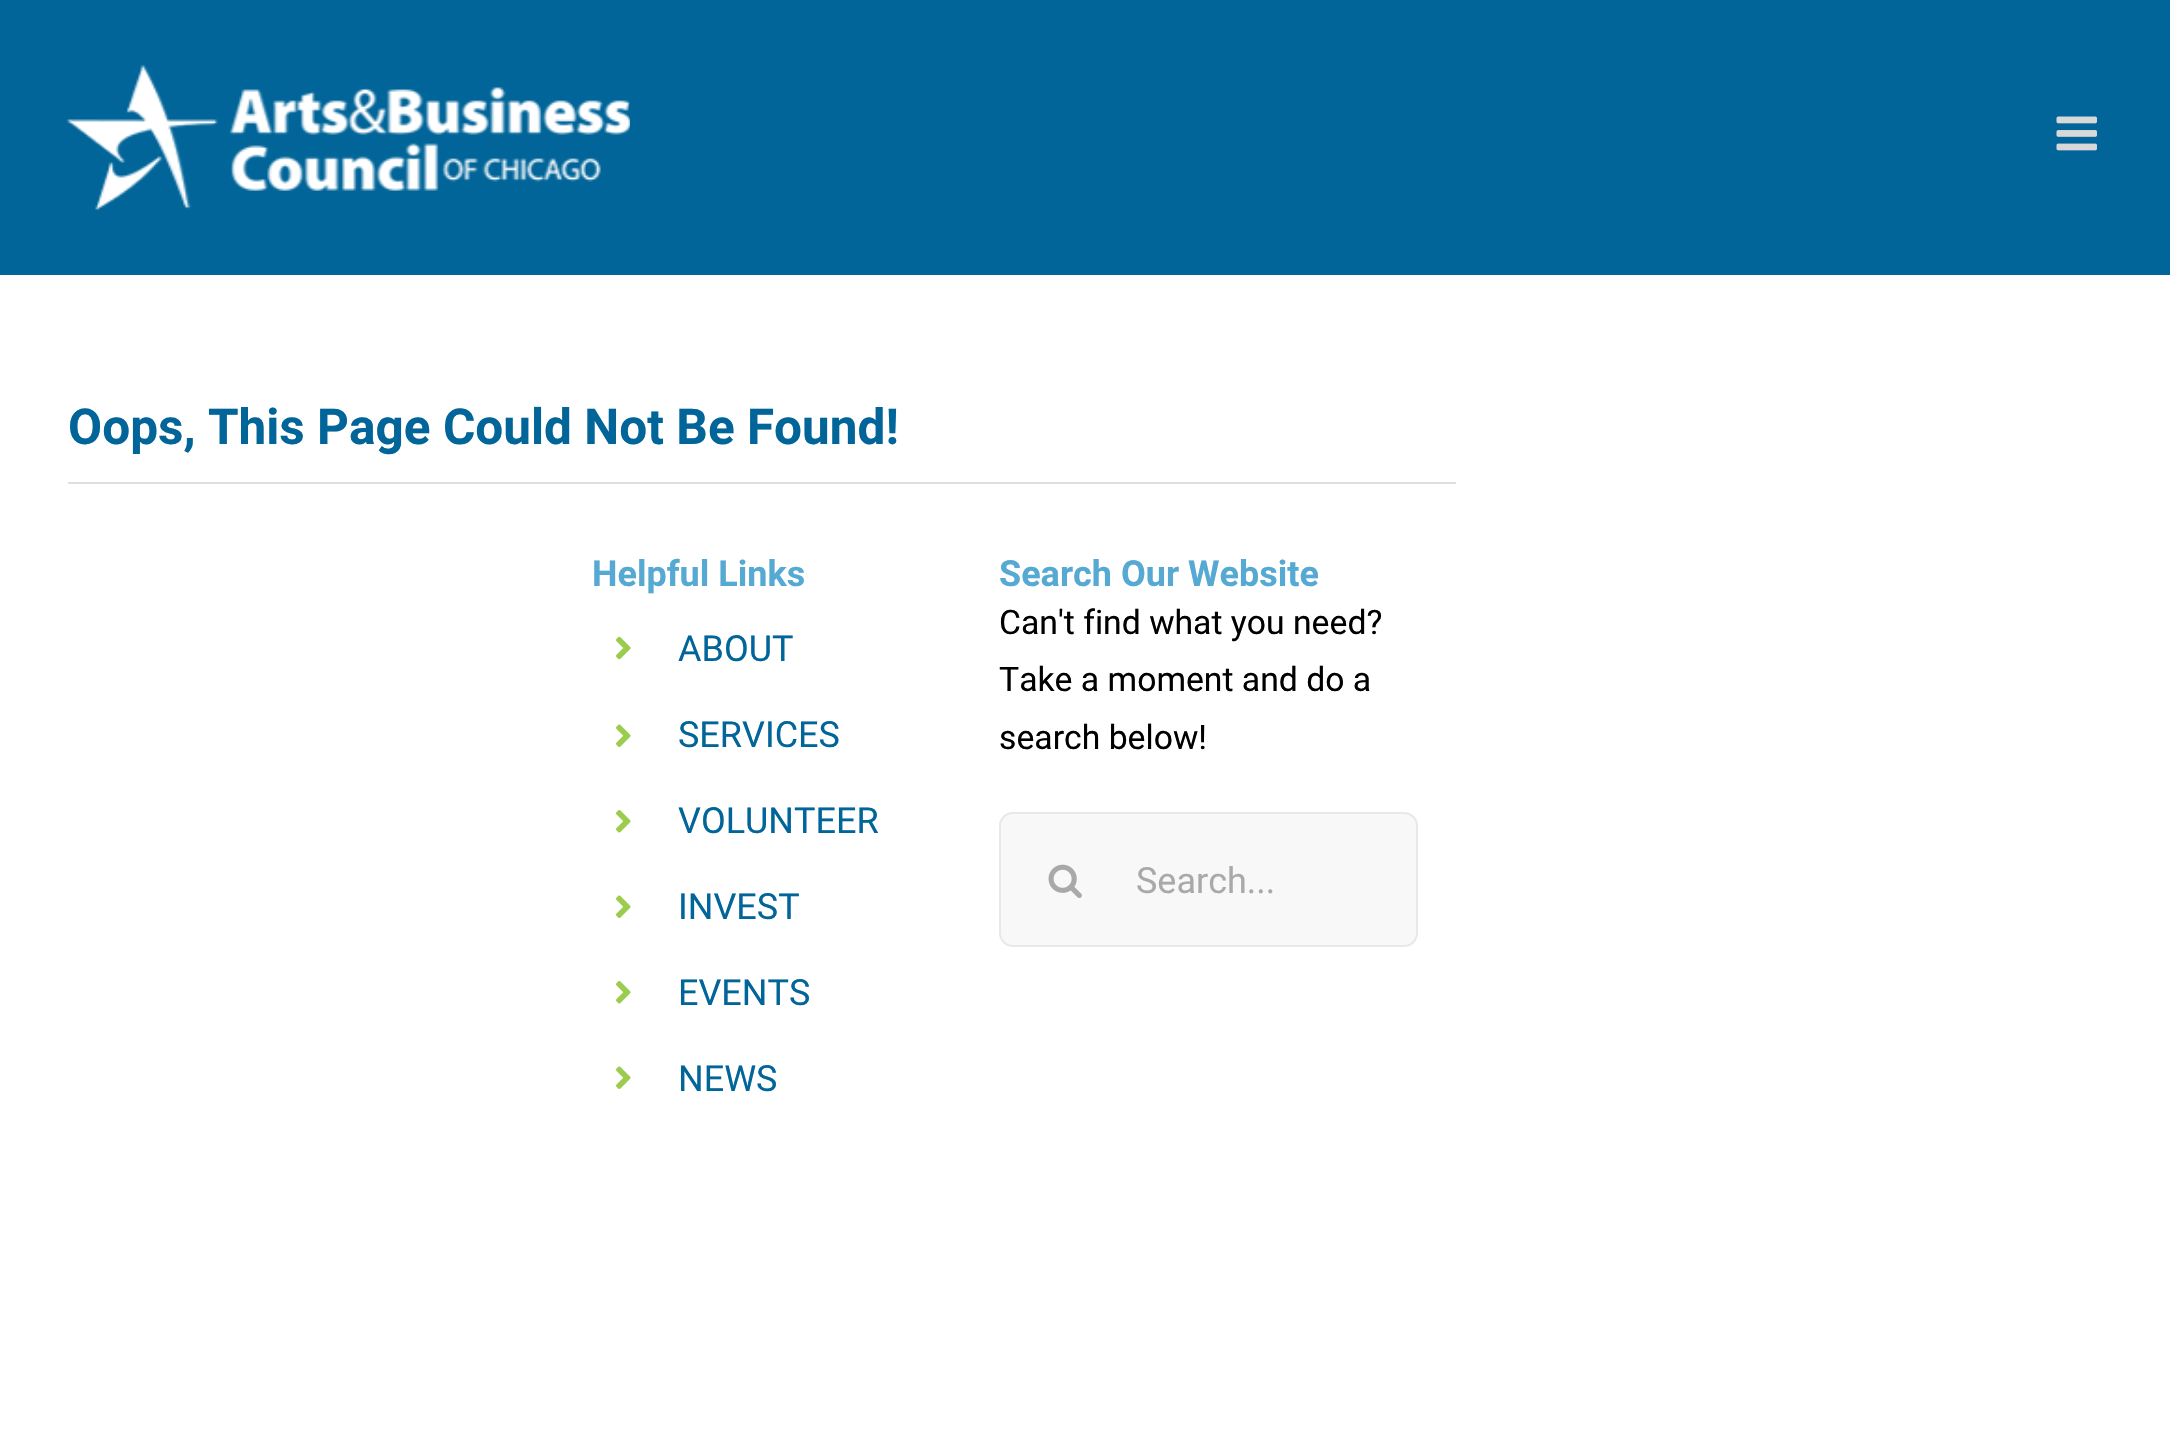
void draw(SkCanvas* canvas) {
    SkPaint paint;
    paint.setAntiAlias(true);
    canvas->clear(0xFFFFFFFF);
    paint.setColor(0xFF016599);
    canvas->drawRect(SkRect::MakeXYWH(0, 0, 2170, 275), paint);
    canvas->drawImageRect(SkImages::DeferredFromEncodedData(SkData::MakeFromFileName("img1.png")), SkRect::MakeXYWH(67, 65, 563, 145), SkSamplingOptions());
    canvas->drawImageRect(SkImages::DeferredFromEncodedData(SkData::MakeFromFileName("img2.png")), SkRect::MakeXYWH(2056, 116, 41, 35), SkSamplingOptions());
    paint.setColor(0xFFE0DEDE);
    canvas->drawRect(SkRect::MakeXYWH(68, 482, 1388, 2), paint);
    SkFont font1(fontMgr->matchFamilyStyle("Roboto", SkFontStyle::Bold()), 49.5f);
    font1.setSubpixel(true);
    paint.setColor(0xFF016599);
    canvas->drawString("Oops, This Page Could Not Be Found!", 68, 444, font1, paint);
    SkFont font2(fontMgr->matchFamilyStyle("Roboto", SkFontStyle::Bold()), 36);
    font2.setSubpixel(true);
    paint.setColor(0xFF55A9D3);
    canvas->drawString("Helpful Links", 592, 586, font2, paint);
    canvas->drawImageRect(SkImages::DeferredFromEncodedData(SkData::MakeFromFileName("img3.png")), SkRect::MakeXYWH(616, 636, 15, 24), SkSamplingOptions());
    SkFont font3(fontMgr->matchFamilyStyle("Roboto", SkFontStyle::Normal()), 36);
    font3.setSubpixel(true);
    paint.setColor(0xFF016599);
    canvas->drawString("ABOUT", 678, 661, font3, paint);
    canvas->drawImageRect(SkImages::DeferredFromEncodedData(SkData::MakeFromFileName("img4.png")), SkRect::MakeXYWH(616, 724, 15, 23), SkSamplingOptions());
    canvas->drawString("SERVICES", 678, 747, font3, paint);
    canvas->drawImageRect(SkImages::DeferredFromEncodedData(SkData::MakeFromFileName("img5.png")), SkRect::MakeXYWH(616, 810, 15, 23), SkSamplingOptions());
    canvas->drawString("VOLUNTEER", 678, 833, font3, paint);
    canvas->drawImageRect(SkImages::DeferredFromEncodedData(SkData::MakeFromFileName("img4.png")), SkRect::MakeXYWH(616, 895, 15, 23), SkSamplingOptions());
    canvas->drawString("INVEST", 678, 919, font3, paint);
    canvas->drawImageRect(SkImages::DeferredFromEncodedData(SkData::MakeFromFileName("img5.png")), SkRect::MakeXYWH(616, 981, 15, 23), SkSamplingOptions());
    canvas->drawString("EVENTS", 678, 1005, font3, paint);
    canvas->drawImageRect(SkImages::DeferredFromEncodedData(SkData::MakeFromFileName("img4.png")), SkRect::MakeXYWH(616, 1066, 15, 23), SkSamplingOptions());
    canvas->drawString("NEWS", 678, 1091, font3, paint);
    paint.setColor(0xFF55A9D3);
    canvas->drawString("Search Our Website", 999, 586, font2, paint);
    SkFont font4(fontMgr->matchFamilyStyle("Roboto", SkFontStyle::Normal()), 33.75f);
    font4.setSubpixel(true);
    paint.setColor(0xFF000000);
    canvas->drawString("Can't find what you need?", 999, 634, font4, paint);
    canvas->drawString("Take a moment and do a", 999, 691, font4, paint);
    canvas->drawString("search below!", 999, 749, font4, paint);
    paint.setColor(0xFFF8F8F8);
    canvas->drawRoundRect(SkRect::MakeXYWH(1000, 813, 417, 133), 13, 13, paint);
    paint.setStyle(SkPaint::kStroke_Style);
    paint.setStrokeWidth(2);
    paint.setColor(0xFFE8E8E8);
    canvas->drawRoundRect(SkRect::MakeXYWH(1000, 813, 417, 133), 13, 13, paint);
    canvas->drawImageRect(SkImages::DeferredFromEncodedData(SkData::MakeFromFileName("img6.png")), SkRect::MakeXYWH(1048, 864, 34, 34), SkSamplingOptions());
    paint.setStyle(SkPaint::kFill_Style);
    paint.setColor(0xFFAAA9A9);
    canvas->drawString("Search...", 1136, 893, font3, paint);
}
